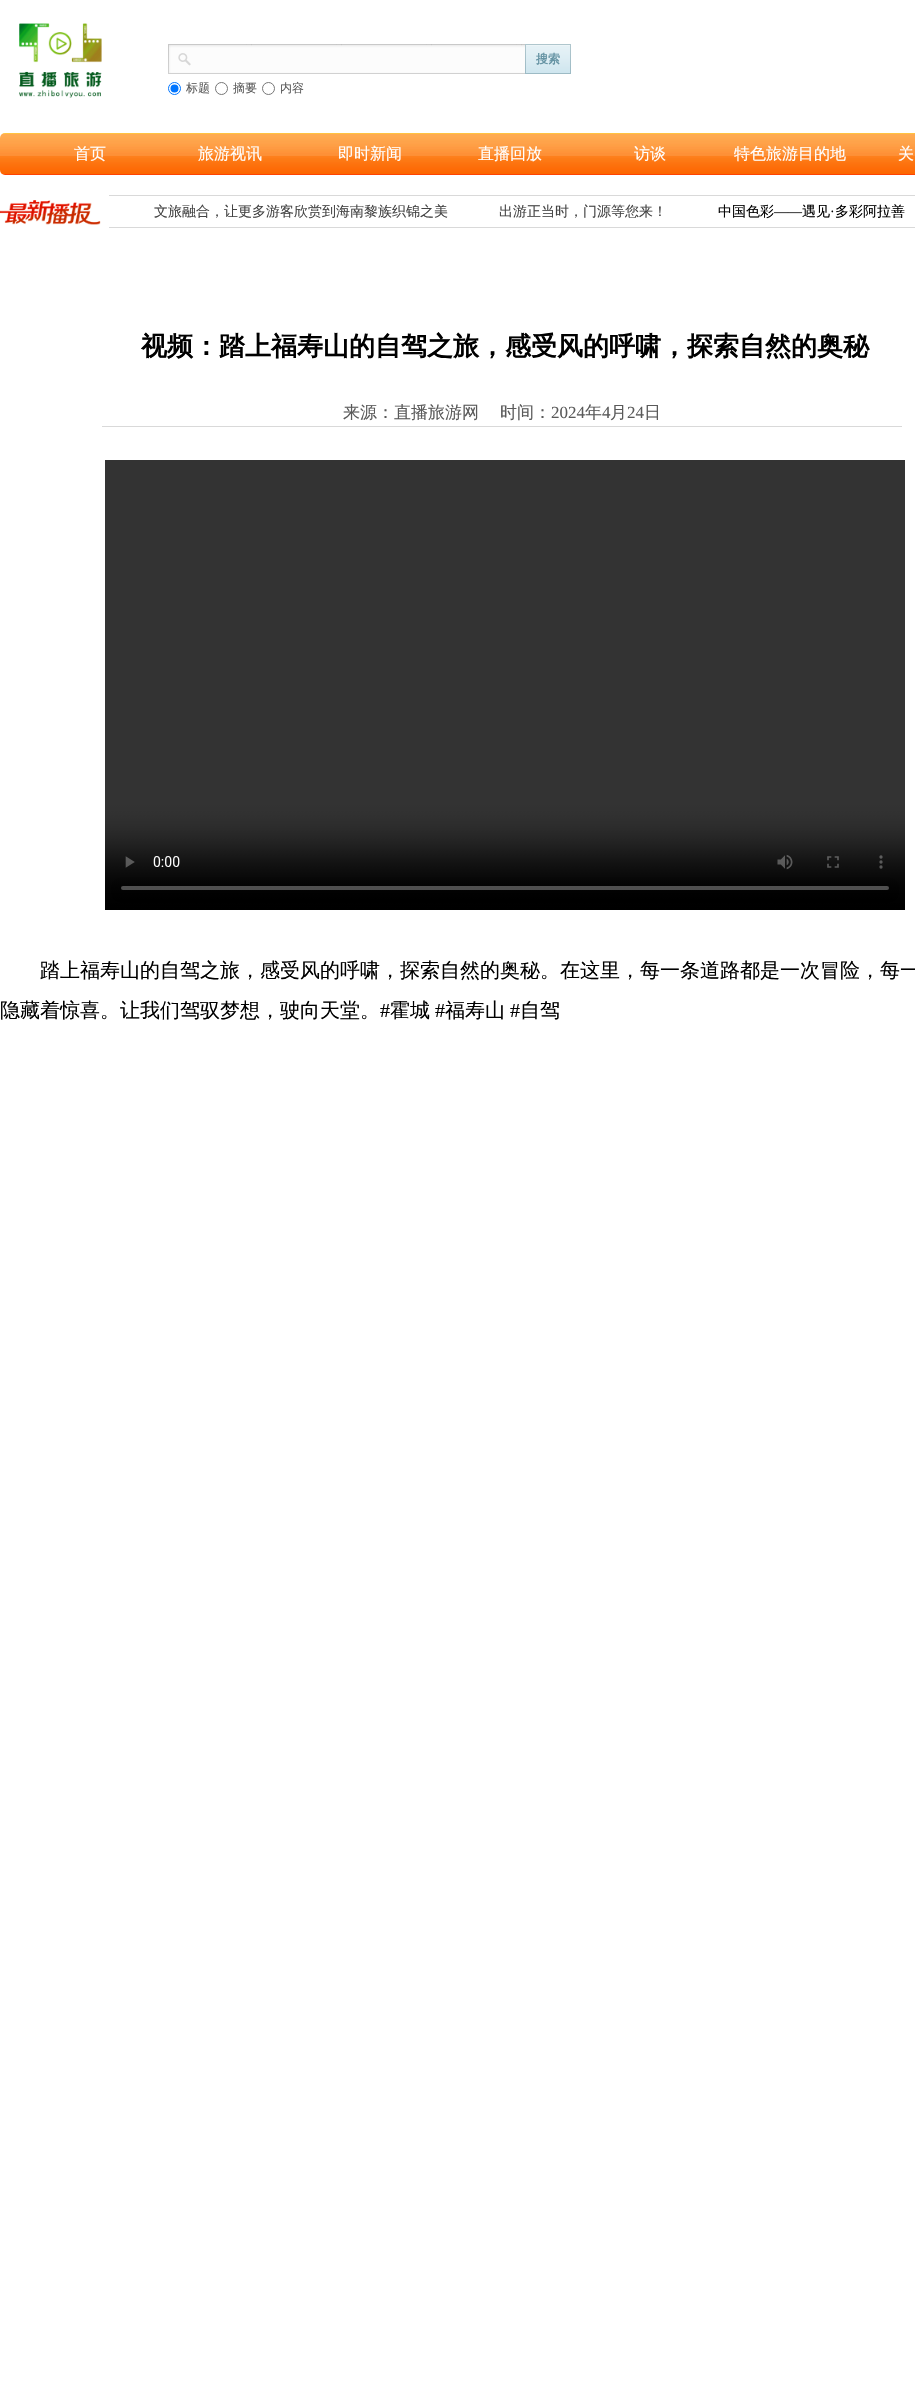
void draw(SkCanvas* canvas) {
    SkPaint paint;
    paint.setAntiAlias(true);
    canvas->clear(0xFFFFFFFF);
    canvas->drawImageRect(SkImages::DeferredFromEncodedData(SkData::MakeFromFileName("img1.png")), SkRect::MakeXYWH(19, 23, 83, 75), SkSamplingOptions());
    canvas->drawImageRect(SkImages::DeferredFromEncodedData(SkData::MakeFromFileName("img2.png")), SkRect::MakeXYWH(168, 44, 25, 30), SkSamplingOptions());
    canvas->drawImageRect(SkImages::DeferredFromEncodedData(SkData::MakeFromFileName("img3.png")), SkRect::MakeXYWH(193, 44, 332, 30), SkSamplingOptions());
    canvas->drawImageRect(SkImages::DeferredFromEncodedData(SkData::MakeFromFileName("img4.png")), SkRect::MakeXYWH(525, 44, 1, 30), SkSamplingOptions());
    canvas->drawImageRect(SkImages::DeferredFromEncodedData(SkData::MakeFromFileName("img5.png")), SkRect::MakeXYWH(526, 44, 44, 30), SkSamplingOptions());
    SkFont font1(fontMgr->matchFamilyStyle("WenQuanYi Zen Hei", SkFontStyle::Bold()), 12);
    font1.setSubpixel(true);
    paint.setColor(0xFF6694A4);
    canvas->drawString("搜索", 536, 63, font1, paint);
    canvas->drawImageRect(SkImages::DeferredFromEncodedData(SkData::MakeFromFileName("img4.png")), SkRect::MakeXYWH(570, 44, 1, 30), SkSamplingOptions());
    paint.setStyle(SkPaint::kStroke_Style);
    paint.setStrokeWidth(1);
    paint.setColor(0xFF0075FF);
    canvas->drawCircle(174.5f, 88.5f, 6, paint);
    paint.setStyle(SkPaint::kFill_Style);
    canvas->drawCircle(174.5f, 88.5f, 4, paint);
    SkFont font2(fontMgr->matchFamilyStyle("WenQuanYi Zen Hei", SkFontStyle(500, SkFontStyle::kNormal_Width, SkFontStyle::kUpright_Slant)), 12);
    font2.setSubpixel(true);
    paint.setColor(0xFF5A5A5A);
    canvas->drawString("标题", 186, 92, font2, paint);
    paint.setStyle(SkPaint::kStroke_Style);
    paint.setColor(0xFF767676);
    canvas->drawCircle(221.5f, 88.5f, 6, paint);
    paint.setStyle(SkPaint::kFill_Style);
    paint.setColor(0xFF5A5A5A);
    canvas->drawString("摘要", 233, 92, font2, paint);
    paint.setStyle(SkPaint::kStroke_Style);
    paint.setColor(0xFF767676);
    canvas->drawCircle(268.5f, 88.5f, 6, paint);
    paint.setStyle(SkPaint::kFill_Style);
    paint.setColor(0xFF5A5A5A);
    canvas->drawString("内容", 280, 92, font2, paint);
    canvas->drawImageRect(SkImages::DeferredFromEncodedData(SkData::MakeFromFileName("img6.png")), SkRect::MakeXYWH(0, 133, 915, 42), SkSamplingOptions());
    SkFont font3(fontMgr->matchFamilyStyle("WenQuanYi Zen Hei", SkFontStyle(500, SkFontStyle::kNormal_Width, SkFontStyle::kUpright_Slant)), 16);
    font3.setSubpixel(true);
    paint.setColor(0xFFFFFFFF);
    canvas->drawString("首页", 74, 159, font3, paint);
    canvas->drawString("旅游视讯", 198, 159, font3, paint);
    canvas->drawString("即时新闻", 338, 159, font3, paint);
    canvas->drawString("直播回放", 478, 159, font3, paint);
    canvas->drawString("访谈", 634, 159, font3, paint);
    canvas->drawString("特色旅游目的地", 734, 159, font3, paint);
    canvas->drawString("关", 898, 159, font3, paint);
    canvas->drawImageRect(SkImages::DeferredFromEncodedData(SkData::MakeFromFileName("img7.png")), SkRect::MakeXYWH(0, 200, 101, 25), SkSamplingOptions());
    paint.setColor(0xFFD9D9D9);
    canvas->drawRect(SkRect::MakeXYWH(109, 195, 806, 1), paint);
    canvas->drawRect(SkRect::MakeXYWH(109, 227, 806, 1), paint);
    SkFont font4(fontMgr->matchFamilyStyle("WenQuanYi Zen Hei", SkFontStyle(500, SkFontStyle::kNormal_Width, SkFontStyle::kUpright_Slant)), 14);
    font4.setSubpixel(true);
    paint.setColor(0xFF434343);
    canvas->drawString("文旅融合，让更多游客欣赏到海南黎族织锦之美", 154, 216, font4, paint);
    canvas->drawString("出游正当时，门源等您来！", 499, 216, font4, paint);
    paint.setColor(0xFF000000);
    canvas->drawString("中国色彩", 718, 216, font4, paint);
    SkFont font5(fontMgr->matchFamilyStyle("Liberation Serif", SkFontStyle::Normal()), 14);
    font5.setSubpixel(true);
    canvas->drawString("——", 774, 216, font5, paint);
    canvas->drawString("遇见", 802, 216, font4, paint);
    canvas->drawString("·", 830, 216, font5, paint);
    canvas->drawString("多彩阿拉善", 835, 216, font4, paint);
    SkFont font6(fontMgr->matchFamilyStyle("WenQuanYi Zen Hei", SkFontStyle::Bold()), 26);
    font6.setSubpixel(true);
    canvas->drawString("视频：踏上福寿山的自驾之旅，感受风的呼啸，探索自然的奥秘", 141, 355, font6, paint);
    paint.setColor(0xFFD9D9D9);
    canvas->drawRect(SkRect::MakeXYWH(102, 426, 800, 1), paint);
    SkFont font7(fontMgr->matchFamilyStyle("WenQuanYi Zen Hei", SkFontStyle(500, SkFontStyle::kNormal_Width, SkFontStyle::kUpright_Slant)), 17);
    font7.setSubpixel(true);
    paint.setColor(0xFF5A5A5A);
    canvas->drawString("来源：直播旅游网", 343, 418, font7, paint);
    canvas->drawString("时间：", 500, 418, font7, paint);
    SkFont font8(fontMgr->matchFamilyStyle("Liberation Serif", SkFontStyle::Normal()), 17);
    font8.setSubpixel(true);
    canvas->drawString("2024", 551, 418, font8, paint);
    canvas->drawString("年", 585, 418, font7, paint);
    canvas->drawString("4", 602, 418, font8, paint);
    canvas->drawString("月", 610, 418, font7, paint);
    canvas->drawString("24", 627, 418, font8, paint);
    canvas->drawString("日", 644, 418, font7, paint);
    canvas->drawImageRect(SkImages::DeferredFromEncodedData(SkData::MakeFromFileName("img8.png")), SkRect::MakeXYWH(105, 460, 800, 450), SkSamplingOptions());
    SkFont font9(fontMgr->matchFamilyStyle("WenQuanYi Zen Hei", SkFontStyle(500, SkFontStyle::kNormal_Width, SkFontStyle::kUpright_Slant)), 20);
    font9.setSubpixel(true);
    paint.setColor(0xFF000000);
    canvas->drawString("踏上福寿山的自驾之旅，感受风的呼啸，探索自然的奥秘。在这里，每一条道路都是一次冒险，每一", 40, 977, font9, paint);
    canvas->drawString("隐藏着惊喜。让我们驾驭梦想，驶向天堂。", 0, 1017, font9, paint);
    SkFont font10(fontMgr->matchFamilyStyle("Liberation Serif", SkFontStyle::Normal()), 20);
    font10.setSubpixel(true);
    canvas->drawString("#", 380, 1017, font10, paint);
    canvas->drawString("霍城", 390, 1017, font9, paint);
    canvas->drawString("#", 435, 1017, font10, paint);
    canvas->drawString("福寿山", 445, 1017, font9, paint);
    canvas->drawString("#", 510, 1017, font10, paint);
    canvas->drawString("自驾", 520, 1017, font9, paint);
}
